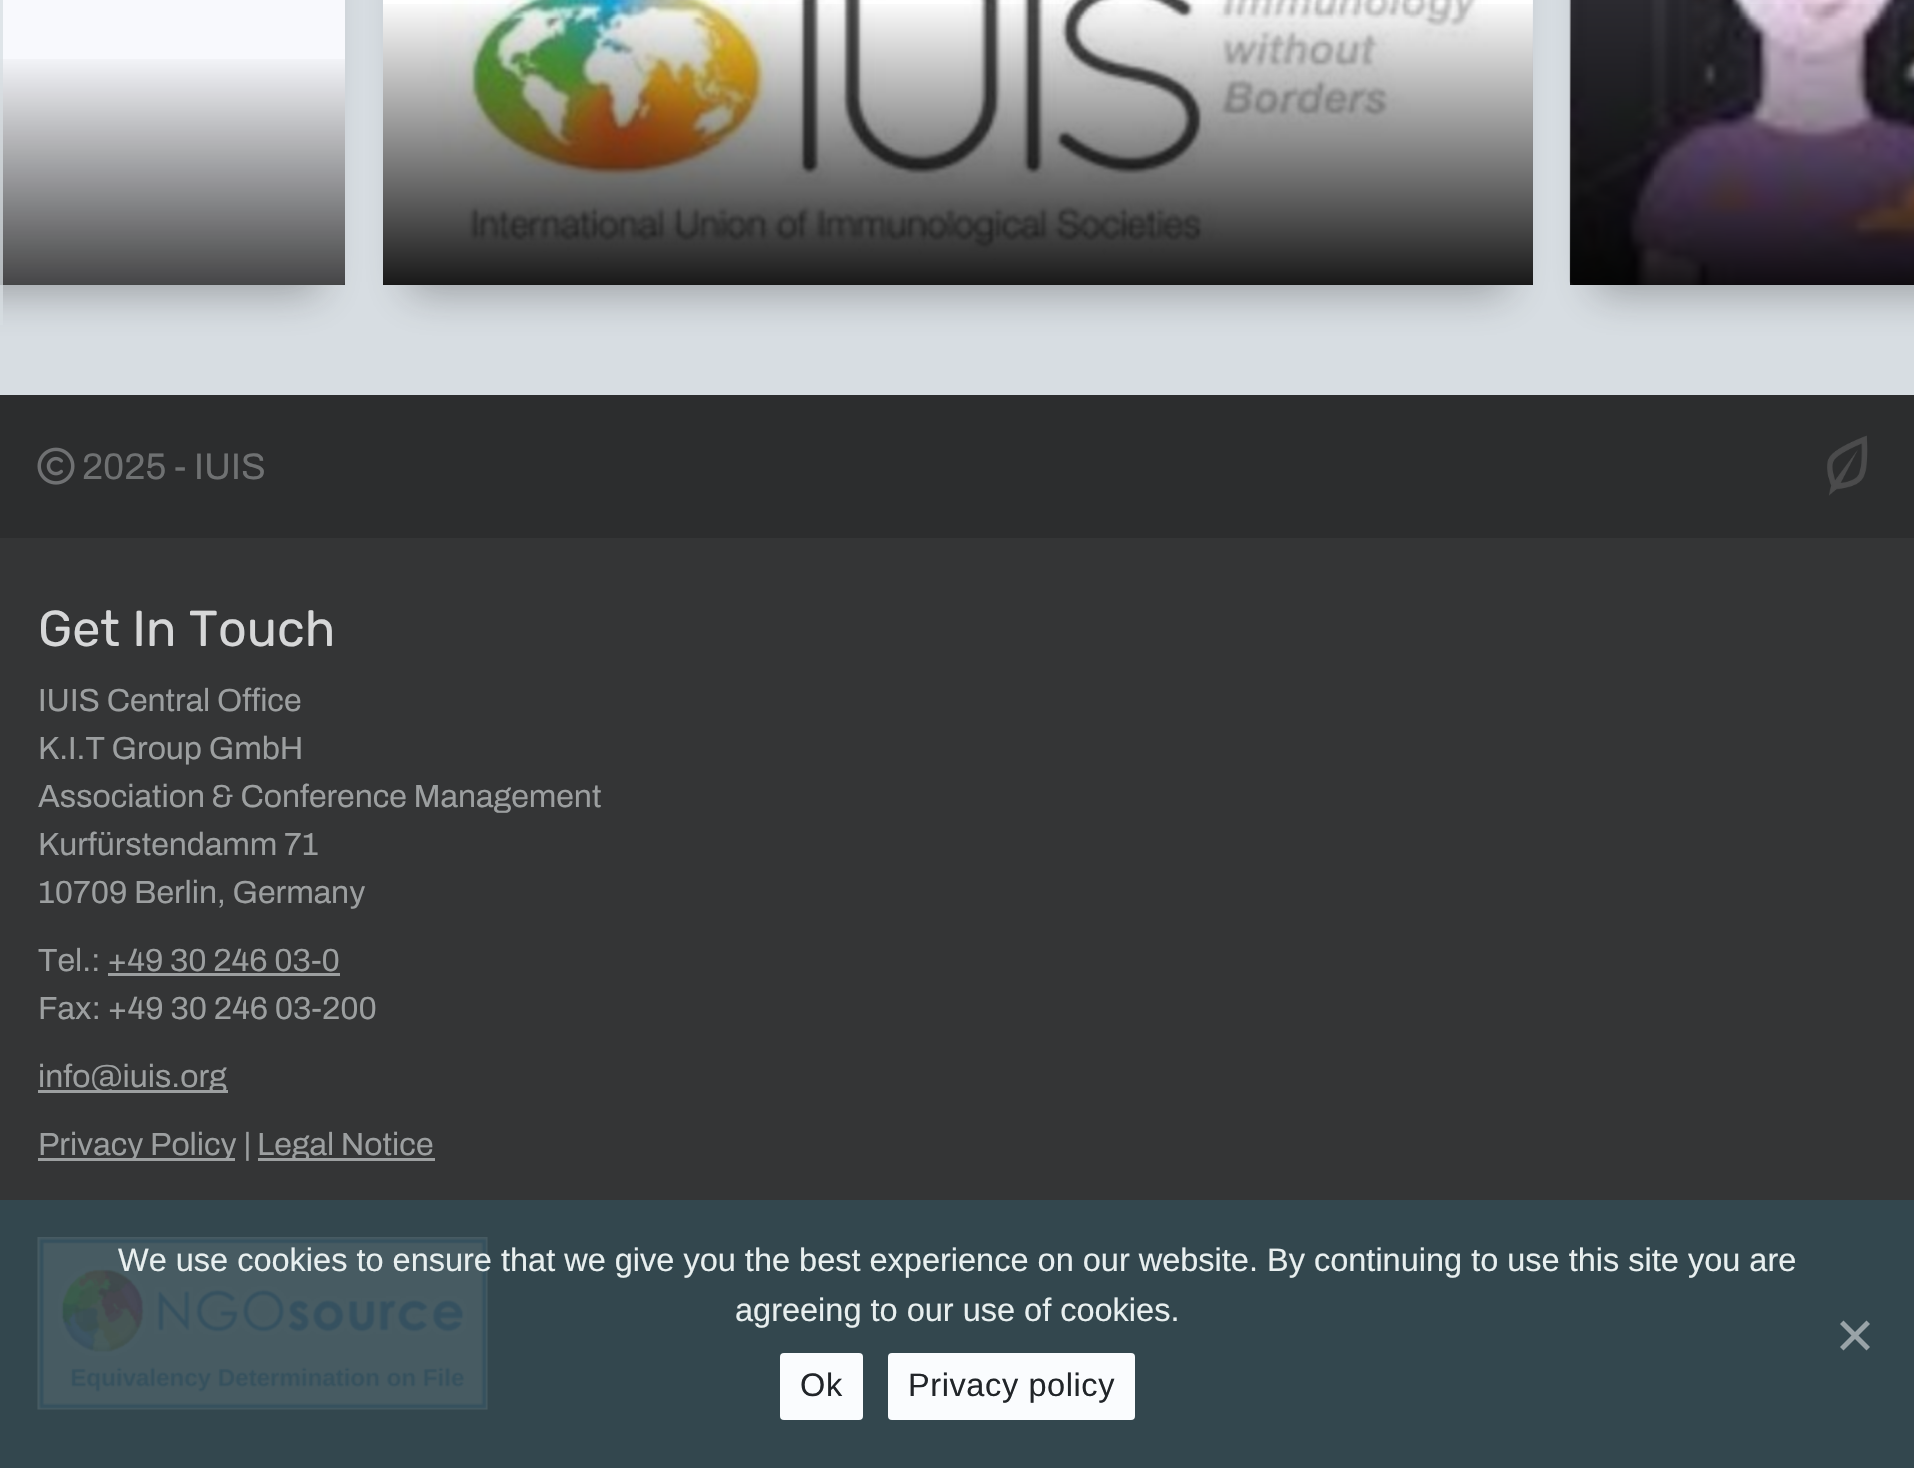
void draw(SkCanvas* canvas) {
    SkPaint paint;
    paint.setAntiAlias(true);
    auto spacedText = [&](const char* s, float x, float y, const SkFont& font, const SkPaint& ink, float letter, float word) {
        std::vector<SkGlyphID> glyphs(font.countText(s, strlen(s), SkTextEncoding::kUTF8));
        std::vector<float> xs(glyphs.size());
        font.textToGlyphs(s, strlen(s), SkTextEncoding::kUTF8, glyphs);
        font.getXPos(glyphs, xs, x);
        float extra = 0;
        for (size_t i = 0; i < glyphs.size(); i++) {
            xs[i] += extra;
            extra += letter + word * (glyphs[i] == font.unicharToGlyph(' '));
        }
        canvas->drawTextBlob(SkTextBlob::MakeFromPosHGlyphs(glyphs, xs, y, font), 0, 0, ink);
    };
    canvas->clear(0xFF343536);
    paint.setColor(0xFF33474E);
    canvas->drawRect(SkRect::MakeXYWH(0, 1200, 1914, 268), paint);
    paint.setColor(0xFFD7DDE2);
    canvas->drawRect(SkRect::MakeXYWH(0, 0, 1914, 395), paint);
    paint.setColor(0xFFF8F9FD);
    canvas->drawPath(SkPathBuilder().moveTo(0, -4).lineTo(341, -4).cubicTo(343, -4, 345, -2, 345, 0).lineTo(345, 281).cubicTo(345, 283, 343, 285, 341, 285).lineTo(0, 285).close().detach(), paint);
    canvas->save();
    canvas->clipPath(SkPathBuilder(SkPathFillType::kEvenOdd).moveTo(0, 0).lineTo(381, 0).lineTo(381, 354).lineTo(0, 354).close().moveTo(-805, -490).lineTo(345, -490).lineTo(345, 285).lineTo(-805, 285).close().detach(), true);
    paint.setColor(0x52181818);
    paint.setMaskFilter(SkMaskFilter::MakeBlur(kNormal_SkBlurStyle, 20));
    canvas->drawRect(SkRect::MakeXYWH(-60, -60, 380, 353), paint);
    paint.setMaskFilter(nullptr);
    canvas->restore();
    {
        const SkColor colors[] = {0x00000000, 0xB8000000};
        const float stops[] = {0, 1};
        const SkPoint ends[] = {{-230, 52}, {-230, 285}};
        paint.setShader(SkGradientShader::MakeLinear(ends, colors, stops, 2, SkTileMode::kClamp));
        paint.setAlpha(255);
    }
    canvas->drawRect(SkRect::MakeXYWH(0, 59, 345, 226), paint);
    paint.setShader(nullptr);
    paint.setColor(0xFFF8F9FD);
    canvas->drawRoundRect(SkRect::MakeXYWH(383, -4, 1150, 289), 4, 4, paint);
    canvas->drawImageRect(SkImages::DeferredFromEncodedData(SkData::MakeFromFileName("img1.png")), SkRect::MakeXYWH(383, 0, 1150, 285), SkSamplingOptions());
    canvas->save();
    canvas->clipPath(SkPathBuilder(SkPathFillType::kEvenOdd).moveTo(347, 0).lineTo(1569, 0).lineTo(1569, 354).lineTo(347, 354).close().moveTo(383, -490).lineTo(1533, -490).lineTo(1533, 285).lineTo(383, 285).close().detach(), true);
    paint.setColor(0x52181818);
    paint.setMaskFilter(SkMaskFilter::MakeBlur(kNormal_SkBlurStyle, 20));
    canvas->drawRect(SkRect::MakeXYWH(408, -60, 1100, 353), paint);
    paint.setMaskFilter(nullptr);
    canvas->restore();
    {
        const SkColor colors[] = {0x00000000, 0xE6000000};
        const float stops[] = {0, 1};
        const SkPoint ends[] = {{958, -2.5f}, {958, 285}};
        paint.setShader(SkGradientShader::MakeLinear(ends, colors, stops, 2, SkTileMode::kClamp));
        paint.setAlpha(255);
    }
    canvas->drawRect(SkRect::MakeXYWH(383, 4, 1150, 281), paint);
    paint.setShader(nullptr);
    paint.setColor(0xFFF8F9FD);
    canvas->drawPath(SkPathBuilder().moveTo(1574, -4).lineTo(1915, -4).lineTo(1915, 285).lineTo(1574, 285).cubicTo(1572, 285, 1570, 283, 1570, 281).lineTo(1570, 0).cubicTo(1570, -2, 1572, -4, 1574, -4).close().detach(), paint);
    canvas->drawImageRect(SkImages::DeferredFromEncodedData(SkData::MakeFromFileName("img2.png")), SkRect::MakeXYWH(1569, 0, 345, 285), SkSamplingOptions());
    canvas->save();
    canvas->clipPath(SkPathBuilder(SkPathFillType::kEvenOdd).moveTo(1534, 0).lineTo(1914, 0).lineTo(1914, 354).lineTo(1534, 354).close().moveTo(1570, -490).lineTo(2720, -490).lineTo(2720, 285).lineTo(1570, 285).close().detach(), true);
    paint.setColor(0x52181818);
    paint.setMaskFilter(SkMaskFilter::MakeBlur(kNormal_SkBlurStyle, 20));
    canvas->drawRect(SkRect::MakeXYWH(1595, -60, 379, 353), paint);
    paint.setMaskFilter(nullptr);
    canvas->restore();
    {
        const SkColor colors[] = {0x00000000, 0xE6000000};
        const float stops[] = {0, 1};
        const SkPoint ends[] = {{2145, -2.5f}, {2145, 285}};
        paint.setShader(SkGradientShader::MakeLinear(ends, colors, stops, 2, SkTileMode::kClamp));
        paint.setAlpha(255);
    }
    canvas->drawRect(SkRect::MakeXYWH(1570, 4, 344, 281), paint);
    paint.setShader(nullptr);
    paint.setColor(0xBFD7DDE2);
    canvas->drawRect(SkRect::MakeXYWH(0, 0, 3, 325), paint);
    paint.setColor(0xFF2C2D2E);
    canvas->drawRect(SkRect::MakeXYWH(0, 395, 1914, 143), paint);
    canvas->drawImageRect(SkImages::DeferredFromEncodedData(SkData::MakeFromFileName("img3.png")), SkRect::MakeXYWH(37, 447, 38, 38), SkSamplingOptions());
    SkFont font1(fontMgr->matchFamilyStyle("Archivo", SkFontStyle(600, SkFontStyle::kNormal_Width, SkFontStyle::kUpright_Slant)), 37);
    font1.setSubpixel(true);
    paint.setColor(0xFF6F7172);
    canvas->drawString("2025 - IUIS", 82, 479, font1, paint);
    canvas->drawImageRect(SkImages::DeferredFromEncodedData(SkData::MakeFromFileName("img4.png")), SkRect::MakeXYWH(1827, 435, 41, 61), SkSamplingOptions());
    SkFont font2(fontMgr->matchFamilyStyle("Rubik", SkFontStyle(300, SkFontStyle::kNormal_Width, SkFontStyle::kUpright_Slant)), 50.25f);
    font2.setSubpixel(true);
    paint.setColor(0xFFD6D7D8);
    canvas->drawString("Get In Touch", 38, 646, font2, paint);
    SkFont font3(fontMgr->matchFamilyStyle("Archivo", SkFontStyle(600, SkFontStyle::kNormal_Width, SkFontStyle::kUpright_Slant)), 32);
    font3.setSubpixel(true);
    paint.setColor(0xFF9C9FA0);
    canvas->drawString("IUIS Central Office", 38, 711, font3, paint);
    canvas->drawString("K.I.T Group GmbH", 38, 759, font3, paint);
    canvas->drawString("Association & Conference Management", 38, 807, font3, paint);
    canvas->drawString("Kurfürstendamm 71", 38, 855, font3, paint);
    canvas->drawString("10709 Berlin, Germany", 38, 903, font3, paint);
    canvas->drawString("Tel.: +49 30 246 03-0", 38, 971, font3, paint);
    canvas->drawRect(SkRect::MakeXYWH(108, 973, 232, 3), paint);
    canvas->drawString("Fax: +49 30 246 03-200", 38, 1019, font3, paint);
    canvas->drawRect(SkRect::MakeXYWH(38, 1090, 190, 3), paint);
    canvas->drawString("info@iuis.org", 38, 1087, font3, paint);
    canvas->drawRect(SkRect::MakeXYWH(38, 1158, 197, 3), paint);
    canvas->drawString("Privacy Policy |", 38, 1155, font3, paint);
    canvas->drawRect(SkRect::MakeXYWH(258, 1158, 177, 3), paint);
    canvas->drawString("Legal Notice", 257, 1155, font3, paint);
    canvas->drawImageRect(SkImages::DeferredFromEncodedData(SkData::MakeFromFileName("img5.png")), SkRect::MakeXYWH(37, 1237, 451, 173), SkSamplingOptions());
    SkFont font4(fontMgr->matchFamilyStyle("Liberation Sans", SkFontStyle::Normal()), 32.5f);
    font4.setSubpixel(true);
    paint.setColor(0xFFE8EFEF);
    canvas->drawString("We use cookies to ensure that we give you the best experience on our website. By continuing to use this site you are", 118, 1271, font4, paint);
    canvas->drawString("agreeing to our use of cookies.", 735, 1321, font4, paint);
    paint.setColor(0xFF99A3A7);
    canvas->drawPath(SkPathBuilder().moveTo(1866.5f, 1320.5f).lineTo(1870, 1324).lineTo(1843.5f, 1350.5f).lineTo(1840, 1347).close().detach(), paint);
    canvas->drawPath(SkPathBuilder().moveTo(1840, 1324).lineTo(1843.5f, 1320.5f).lineTo(1870, 1347).lineTo(1866.5f, 1350.5f).close().detach(), paint);
    paint.setColor(0xFFFAFCFE);
    canvas->drawRoundRect(SkRect::MakeXYWH(780, 1353, 83, 67), 4, 4, paint);
    paint.setColor(0xFF212529);
    spacedText("Ok", 800, 1396, font4, paint, 0.6f, 0);
    paint.setColor(0xFFFAFCFE);
    canvas->drawRoundRect(SkRect::MakeXYWH(888, 1353, 247, 67), 4, 4, paint);
    paint.setColor(0xFF212529);
    spacedText("Privacy policy", 908, 1396, font4, paint, 0.6f, 0);
}
